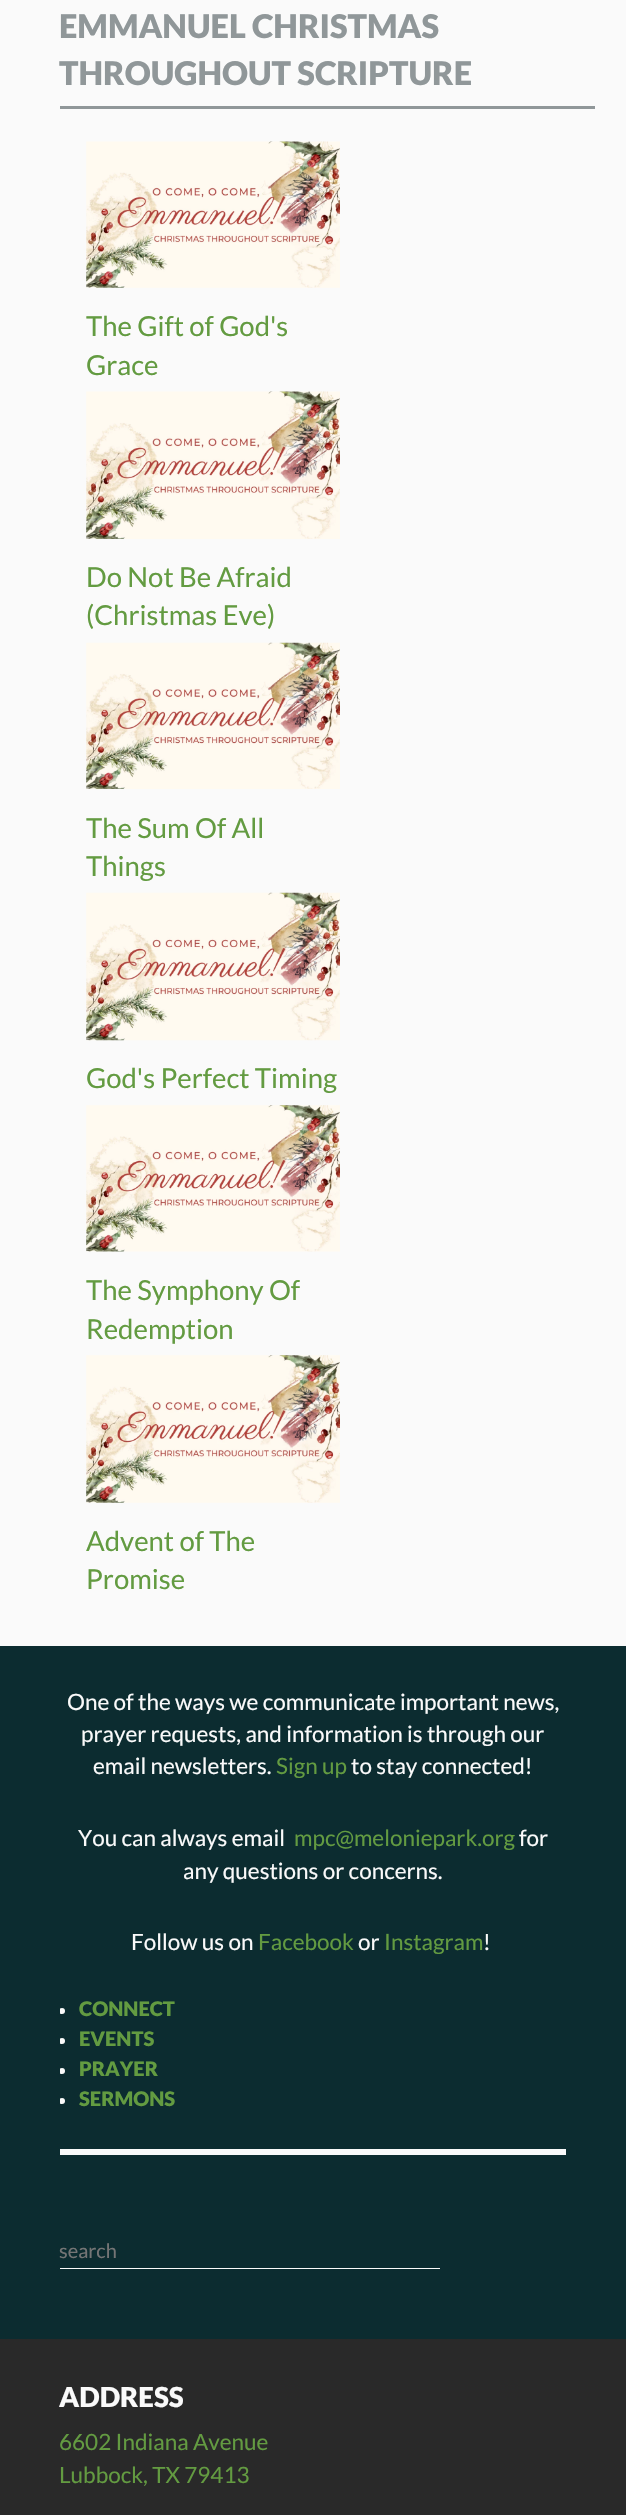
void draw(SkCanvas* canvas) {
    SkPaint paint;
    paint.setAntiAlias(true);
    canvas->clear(0xFFFAFAFA);
    paint.setColor(0xFF909799);
    canvas->drawRect(SkRect::MakeXYWH(60, 106, 535, 3), paint);
    SkFont font1(fontMgr->matchFamilyStyle("Lato", SkFontStyle(900, SkFontStyle::kNormal_Width, SkFontStyle::kUpright_Slant)), 32.5f);
    font1.setSubpixel(true);
    canvas->drawString("EMMANUEL CHRISTMAS", 59, 38, font1, paint);
    canvas->drawString("THROUGHOUT SCRIPTURE", 59, 85, font1, paint);
    canvas->drawImageRect(SkImages::DeferredFromEncodedData(SkData::MakeFromFileName("img1.png")), SkRect::MakeXYWH(86, 141, 254, 147), SkSamplingOptions());
    SkFont font2(fontMgr->matchFamilyStyle("Lato", SkFontStyle::Normal()), 27.5f);
    font2.setSubpixel(true);
    paint.setColor(0xFF639B41);
    canvas->drawString("The Gift of God's", 86, 336, font2, paint);
    canvas->drawString("Grace", 86, 375, font2, paint);
    canvas->drawImageRect(SkImages::DeferredFromEncodedData(SkData::MakeFromFileName("img2.png")), SkRect::MakeXYWH(86, 391, 254, 148), SkSamplingOptions());
    canvas->drawString("Do Not Be Afraid", 86, 587, font2, paint);
    canvas->drawString("(Christmas Eve)", 86, 625, font2, paint);
    canvas->drawImageRect(SkImages::DeferredFromEncodedData(SkData::MakeFromFileName("img3.png")), SkRect::MakeXYWH(86, 642, 254, 147), SkSamplingOptions());
    canvas->drawString("The Sum Of All", 86, 838, font2, paint);
    canvas->drawString("Things", 86, 876, font2, paint);
    canvas->drawImageRect(SkImages::DeferredFromEncodedData(SkData::MakeFromFileName("img4.png")), SkRect::MakeXYWH(86, 892, 254, 149), SkSamplingOptions());
    canvas->drawString("God's Perfect Timing", 86, 1088, font2, paint);
    canvas->drawImageRect(SkImages::DeferredFromEncodedData(SkData::MakeFromFileName("img5.png")), SkRect::MakeXYWH(86, 1105, 254, 147), SkSamplingOptions());
    canvas->drawString("The Symphony Of", 86, 1300, font2, paint);
    canvas->drawString("Redemption", 86, 1339, font2, paint);
    canvas->drawImageRect(SkImages::DeferredFromEncodedData(SkData::MakeFromFileName("img6.png")), SkRect::MakeXYWH(86, 1355, 254, 148), SkSamplingOptions());
    canvas->drawString("Advent of The", 86, 1551, font2, paint);
    canvas->drawString("Promise", 86, 1589, font2, paint);
    paint.setColor(0xFF0C2C30);
    canvas->drawRect(SkRect::MakeXYWH(0, 1646, 626, 693), paint);
    paint.setColor(0xFFFAFAFA);
    canvas->drawRect(SkRect::MakeXYWH(60, 2149, 506, 6), paint);
    SkFont font3(fontMgr->matchFamilyStyle("Lato", SkFontStyle::Normal()), 22.5f);
    font3.setSubpixel(true);
    canvas->drawString("One of the ways we communicate important news,", 67, 1710, font3, paint);
    canvas->drawString("prayer requests, and information is through our", 81, 1742, font3, paint);
    canvas->drawString("email newsletters.", 93, 1774, font3, paint);
    paint.setColor(0xFF639B41);
    canvas->drawString("Sign up", 276, 1774, font3, paint);
    paint.setColor(0xFFFAFAFA);
    canvas->drawString("to stay connected!", 351, 1774, font3, paint);
    canvas->drawString("You can always email", 78, 1846, font3, paint);
    paint.setColor(0xFF639B41);
    canvas->drawString("mpc@meloniepark.org", 294, 1846, font3, paint);
    paint.setColor(0xFFFAFAFA);
    canvas->drawString("for", 519, 1846, font3, paint);
    canvas->drawString("any questions or concerns.", 183, 1879, font3, paint);
    canvas->drawString("Follow us on", 131, 1950, font3, paint);
    paint.setColor(0xFF639B41);
    canvas->drawString("Facebook", 258, 1950, font3, paint);
    paint.setColor(0xFFFAFAFA);
    canvas->drawString("or", 358, 1950, font3, paint);
    paint.setColor(0xFF639B41);
    canvas->drawString("Instagram", 384, 1950, font3, paint);
    paint.setColor(0xFFFAFAFA);
    canvas->drawString("!", 483, 1950, font3, paint);
    canvas->save();
    canvas->clipRect(SkRect::MakeXYWH(60, 1686, 506, 463));
    canvas->drawCircle(62, 2011, 3, paint);
    canvas->restore();
    SkFont font4(fontMgr->matchFamilyStyle("Lato", SkFontStyle(900, SkFontStyle::kNormal_Width, SkFontStyle::kUpright_Slant)), 20);
    font4.setSubpixel(true);
    paint.setColor(0xFF639B41);
    canvas->drawString("CONNECT", 79, 2016, font4, paint);
    canvas->save();
    canvas->clipRect(SkRect::MakeXYWH(60, 1686, 506, 463));
    paint.setColor(0xFFFAFAFA);
    canvas->drawCircle(62, 2041, 3, paint);
    canvas->restore();
    paint.setColor(0xFF639B41);
    canvas->drawString("EVENTS", 79, 2046, font4, paint);
    canvas->save();
    canvas->clipRect(SkRect::MakeXYWH(60, 1686, 506, 463));
    paint.setColor(0xFFFAFAFA);
    canvas->drawCircle(62, 2071, 3, paint);
    canvas->restore();
    paint.setColor(0xFF639B41);
    canvas->drawString("PRAYER", 79, 2076, font4, paint);
    canvas->save();
    canvas->clipRect(SkRect::MakeXYWH(60, 1686, 506, 463));
    paint.setColor(0xFFFAFAFA);
    canvas->drawCircle(62, 2101, 3, paint);
    canvas->restore();
    paint.setColor(0xFF639B41);
    canvas->drawString("SERMONS", 79, 2106, font4, paint);
    paint.setColor(0xFFFAFAFA);
    canvas->drawRect(SkRect::MakeXYWH(60, 2268, 380, 1), paint);
    SkFont font5(fontMgr->matchFamilyStyle("Lato", SkFontStyle::Normal()), 20);
    font5.setSubpixel(true);
    paint.setColor(0xFF757575);
    canvas->drawString("search", 59, 2258, font5, paint);
    paint.setColor(0xFF292929);
    canvas->drawRect(SkRect::MakeXYWH(0, 2339, 626, 176), paint);
    SkFont font6(fontMgr->matchFamilyStyle("Lato", SkFontStyle(900, SkFontStyle::kNormal_Width, SkFontStyle::kUpright_Slant)), 27.5f);
    font6.setSubpixel(true);
    paint.setColor(0xFFFAFAFA);
    canvas->drawString("ADDRESS", 59, 2407, font6, paint);
    paint.setColor(0xFF639B41);
    canvas->drawString("6602 Indiana Avenue", 59, 2450, font3, paint);
    canvas->drawString("Lubbock, TX 79413", 59, 2483, font3, paint);
}
